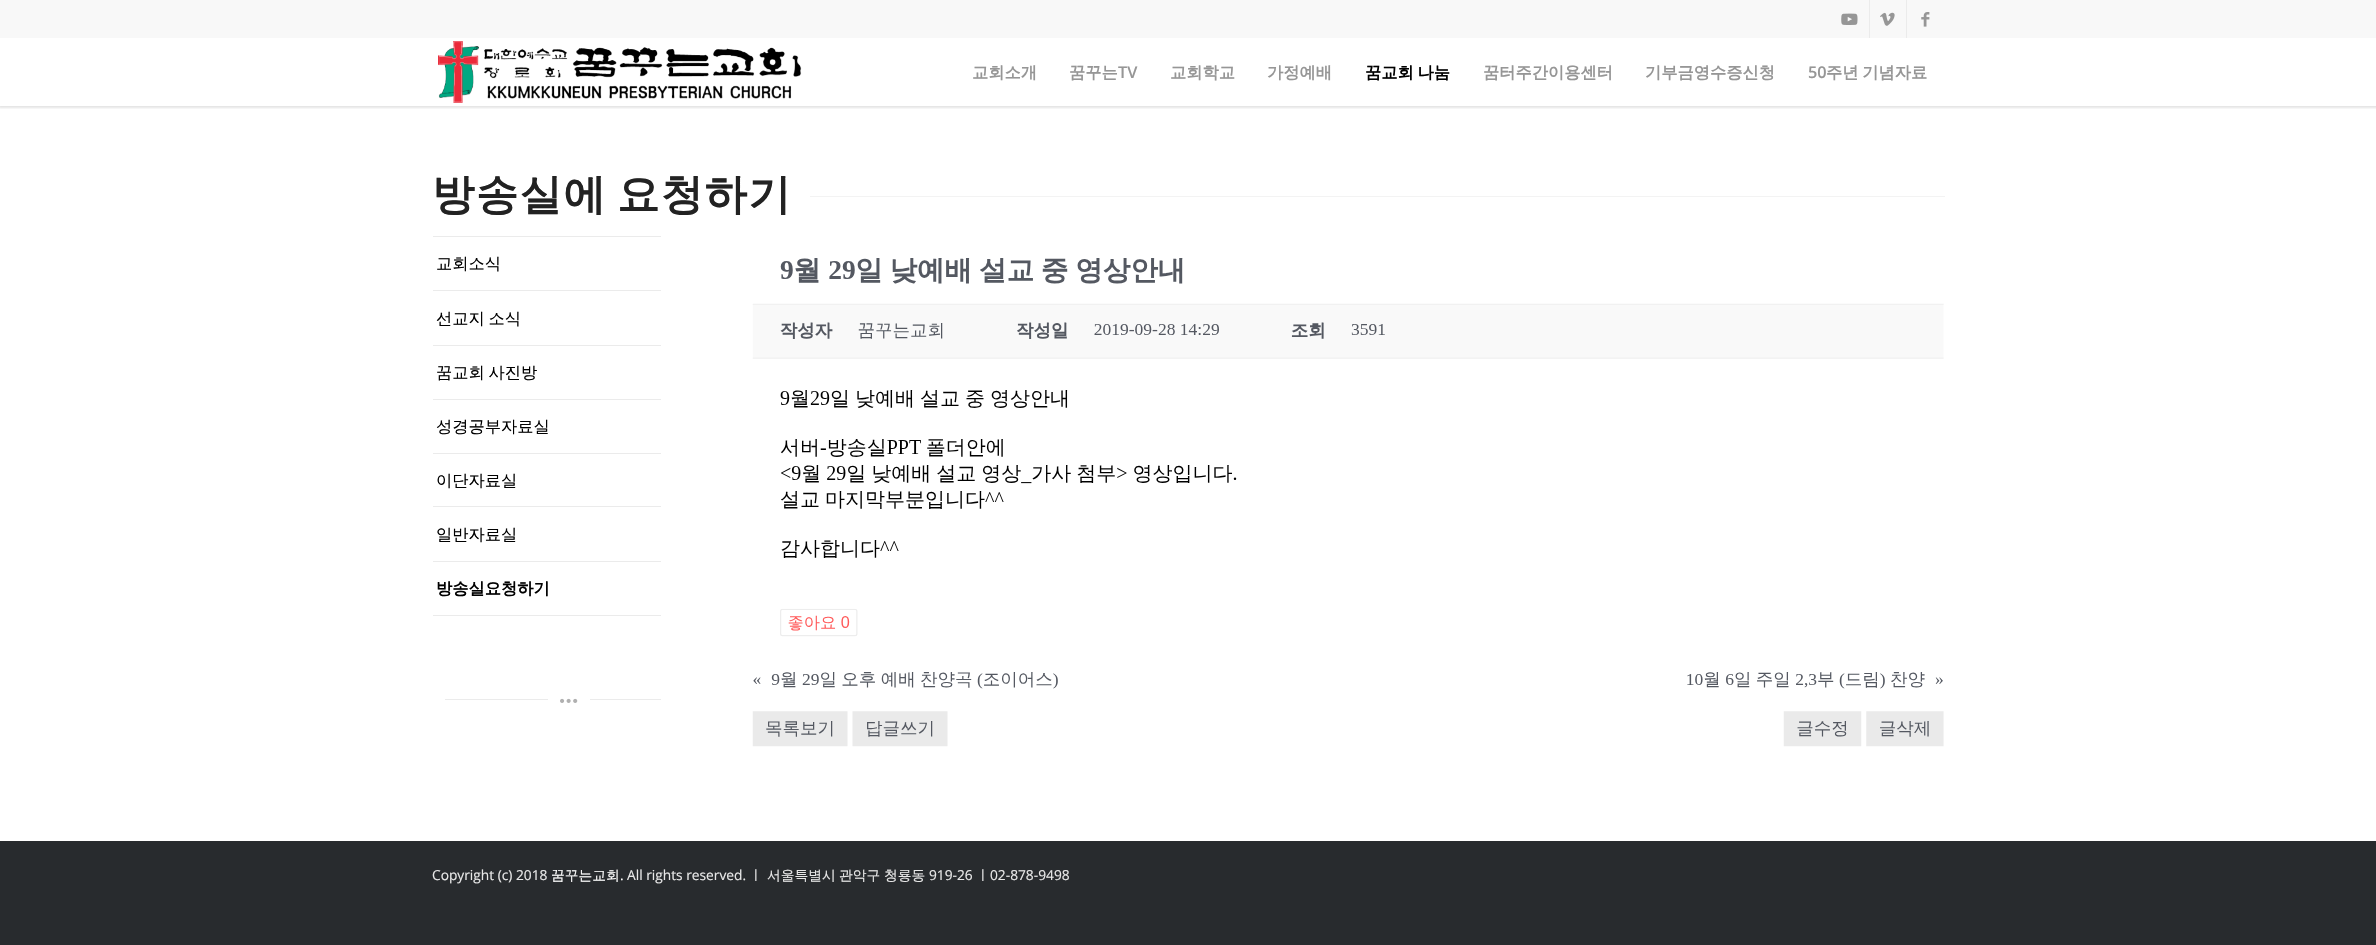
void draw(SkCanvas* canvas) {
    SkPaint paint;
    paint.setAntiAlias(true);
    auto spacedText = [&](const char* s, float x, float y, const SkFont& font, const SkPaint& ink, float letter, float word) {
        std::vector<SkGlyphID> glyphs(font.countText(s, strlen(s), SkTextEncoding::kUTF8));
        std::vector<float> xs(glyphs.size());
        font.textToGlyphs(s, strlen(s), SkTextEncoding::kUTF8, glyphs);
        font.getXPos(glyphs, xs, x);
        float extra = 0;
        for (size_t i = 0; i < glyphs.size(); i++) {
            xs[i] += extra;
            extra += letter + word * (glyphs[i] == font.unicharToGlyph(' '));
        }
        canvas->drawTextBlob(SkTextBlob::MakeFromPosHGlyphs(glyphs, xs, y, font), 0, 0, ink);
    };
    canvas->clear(0xFF282B2E);
    paint.setColor(0xFFFFFFFF);
    canvas->drawRect(SkRect::MakeXYWH(0, 38, 2376, 803), paint);
    canvas->save();
    canvas->clipRect(SkRect::MakeXYWH(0, 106, 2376, 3));
    paint.setColor(0x1A000000);
    paint.setMaskFilter(SkMaskFilter::MakeBlur(kNormal_SkBlurStyle, 1));
    canvas->drawRect(SkRect::MakeXYWH(-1, -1, 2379, 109), paint);
    paint.setMaskFilter(nullptr);
    canvas->restore();
    paint.setColor(0xFFF8F8F8);
    canvas->drawRect(SkRect::MakeXYWH(0, 0, 2376, 38), paint);
    paint.setColor(0xFFEBEBEB);
    canvas->drawRect(SkRect::MakeXYWH(1869, 0, 1, 38), paint);
    canvas->drawImageRect(SkImages::DeferredFromEncodedData(SkData::MakeFromFileName("img1.png")), SkRect::MakeXYWH(1841, 13, 17, 12), SkSamplingOptions());
    canvas->drawRect(SkRect::MakeXYWH(1906, 0, 1, 38), paint);
    canvas->drawImageRect(SkImages::DeferredFromEncodedData(SkData::MakeFromFileName("img2.png")), SkRect::MakeXYWH(1880, 12, 15, 14), SkSamplingOptions());
    canvas->drawImageRect(SkImages::DeferredFromEncodedData(SkData::MakeFromFileName("img3.png")), SkRect::MakeXYWH(1921, 12, 9, 15), SkSamplingOptions());
    canvas->drawImageRect(SkImages::DeferredFromEncodedData(SkData::MakeFromFileName("img4.png")), SkRect::MakeXYWH(438, 41, 364, 62), SkSamplingOptions());
    SkFont font1(fontMgr->matchFamilyStyle("WenQuanYi Zen Hei", SkFontStyle::Bold()), 16.25f);
    font1.setSubpixel(true);
    paint.setColor(0xFF969696);
    canvas->drawString("교회소개", 972, 78, font1, paint);
    canvas->drawString("꿈꾸는", 1069, 78, font1, paint);
    SkFont font2(fontMgr->matchFamilyStyle("Open Sans", SkFontStyle(600, SkFontStyle::kNormal_Width, SkFontStyle::kUpright_Slant)), 16.25f);
    font2.setSubpixel(true);
    canvas->drawString("TV", 1118, 78, font2, paint);
    canvas->drawString("교회학교", 1170, 78, font1, paint);
    canvas->drawString("가정예배", 1267, 78, font1, paint);
    paint.setColor(0xFF000000);
    spacedText("꿈교회 나눔", 1365, 78, font1, paint, 0, -1);
    paint.setColor(0xFF969696);
    canvas->drawString("꿈터주간이용센터", 1483, 78, font1, paint);
    canvas->drawString("기부금영수증신청", 1645, 78, font1, paint);
    canvas->drawString("50", 1808, 78, font2, paint);
    spacedText("주년 기념자료", 1826, 78, font1, paint, 0, -1);
    SkFont font3(fontMgr->matchFamilyStyle("WenQuanYi Zen Hei", SkFontStyle::Bold()), 42.5f);
    font3.setSubpixel(true);
    paint.setColor(0xFF222222);
    spacedText("방송실에 요청하기", 432, 209, font3, paint, 1.25f, -4);
    paint.setColor(0xFFF3F3F3);
    canvas->drawRect(SkRect::MakeXYWH(810, 196, 1135, 1), paint);
    paint.setColor(0xFFEBEBEB);
    canvas->drawRect(SkRect::MakeXYWH(433, 236, 228, 1), paint);
    canvas->drawRect(SkRect::MakeXYWH(433, 290, 228, 1), paint);
    SkFont font4(fontMgr->matchFamilyStyle("WenQuanYi Zen Hei", SkFontStyle(500, SkFontStyle::kNormal_Width, SkFontStyle::kUpright_Slant)), 16.25f);
    font4.setSubpixel(true);
    paint.setColor(0xFF000000);
    canvas->drawString("교회소식", 436, 269, font4, paint);
    paint.setColor(0xFFEBEBEB);
    canvas->drawRect(SkRect::MakeXYWH(433, 345, 228, 1), paint);
    paint.setColor(0xFF000000);
    spacedText("선교지 소식", 436, 324, font4, paint, 0, -1);
    paint.setColor(0xFFEBEBEB);
    canvas->drawRect(SkRect::MakeXYWH(433, 399, 228, 1), paint);
    paint.setColor(0xFF000000);
    spacedText("꿈교회 사진방", 436, 378, font4, paint, 0, -1);
    paint.setColor(0xFFEBEBEB);
    canvas->drawRect(SkRect::MakeXYWH(433, 453, 228, 1), paint);
    paint.setColor(0xFF000000);
    canvas->drawString("성경공부자료실", 436, 432, font4, paint);
    paint.setColor(0xFFEBEBEB);
    canvas->drawRect(SkRect::MakeXYWH(433, 506, 228, 1), paint);
    paint.setColor(0xFF000000);
    canvas->drawString("이단자료실", 436, 486, font4, paint);
    paint.setColor(0xFFEBEBEB);
    canvas->drawRect(SkRect::MakeXYWH(433, 561, 228, 1), paint);
    paint.setColor(0xFF000000);
    canvas->drawString("일반자료실", 436, 540, font4, paint);
    paint.setColor(0xFFEBEBEB);
    canvas->drawRect(SkRect::MakeXYWH(433, 615, 228, 1), paint);
    paint.setColor(0xFF000000);
    canvas->drawString("방송실요청하기", 436, 594, font1, paint);
    paint.setColor(0xFFEBEBEB);
    canvas->drawRect(SkRect::MakeXYWH(445, 699, 103, 1), paint);
    canvas->drawImageRect(SkImages::DeferredFromEncodedData(SkData::MakeFromFileName("img5.png")), SkRect::MakeXYWH(560, 698, 18, 5), SkSamplingOptions());
    canvas->drawRect(SkRect::MakeXYWH(590, 699, 71, 1), paint);
    canvas->drawImageRect(SkImages::DeferredFromEncodedData(SkData::MakeFromFileName("img6.png")), SkRect::MakeXYWH(752, 258, 1192, 489), SkSamplingOptions());
    SkFont font5(fontMgr->matchFamilyStyle("Open Sans", SkFontStyle::Normal()), 13.75f);
    font5.setSubpixel(true);
    paint.setColor(0xFFE8E8E8);
    canvas->drawString("Copyright (c) 2018", 432, 880, font5, paint);
    SkFont font6(fontMgr->matchFamilyStyle("WenQuanYi Zen Hei", SkFontStyle(500, SkFontStyle::kNormal_Width, SkFontStyle::kUpright_Slant)), 13.75f);
    font6.setSubpixel(true);
    paint.setColor(0xFFFFFFFF);
    canvas->drawString("꿈꾸는교회", 551, 880, font6, paint);
    canvas->drawString(".", 620, 880, font5, paint);
    paint.setColor(0xFFE8E8E8);
    canvas->drawString("All rights reserved.", 627, 880, font5, paint);
    canvas->drawString("ㅣ", 749, 880, font6, paint);
    canvas->drawString("서울특별시", 767, 880, font6, paint);
    canvas->drawString("관악구", 839, 880, font6, paint);
    canvas->drawString("청룡동", 884, 880, font6, paint);
    canvas->drawString("919-26", 929, 880, font5, paint);
    canvas->drawString("ㅣ", 976, 880, font6, paint);
    canvas->drawString("02-878-9498", 990, 880, font5, paint);
}
